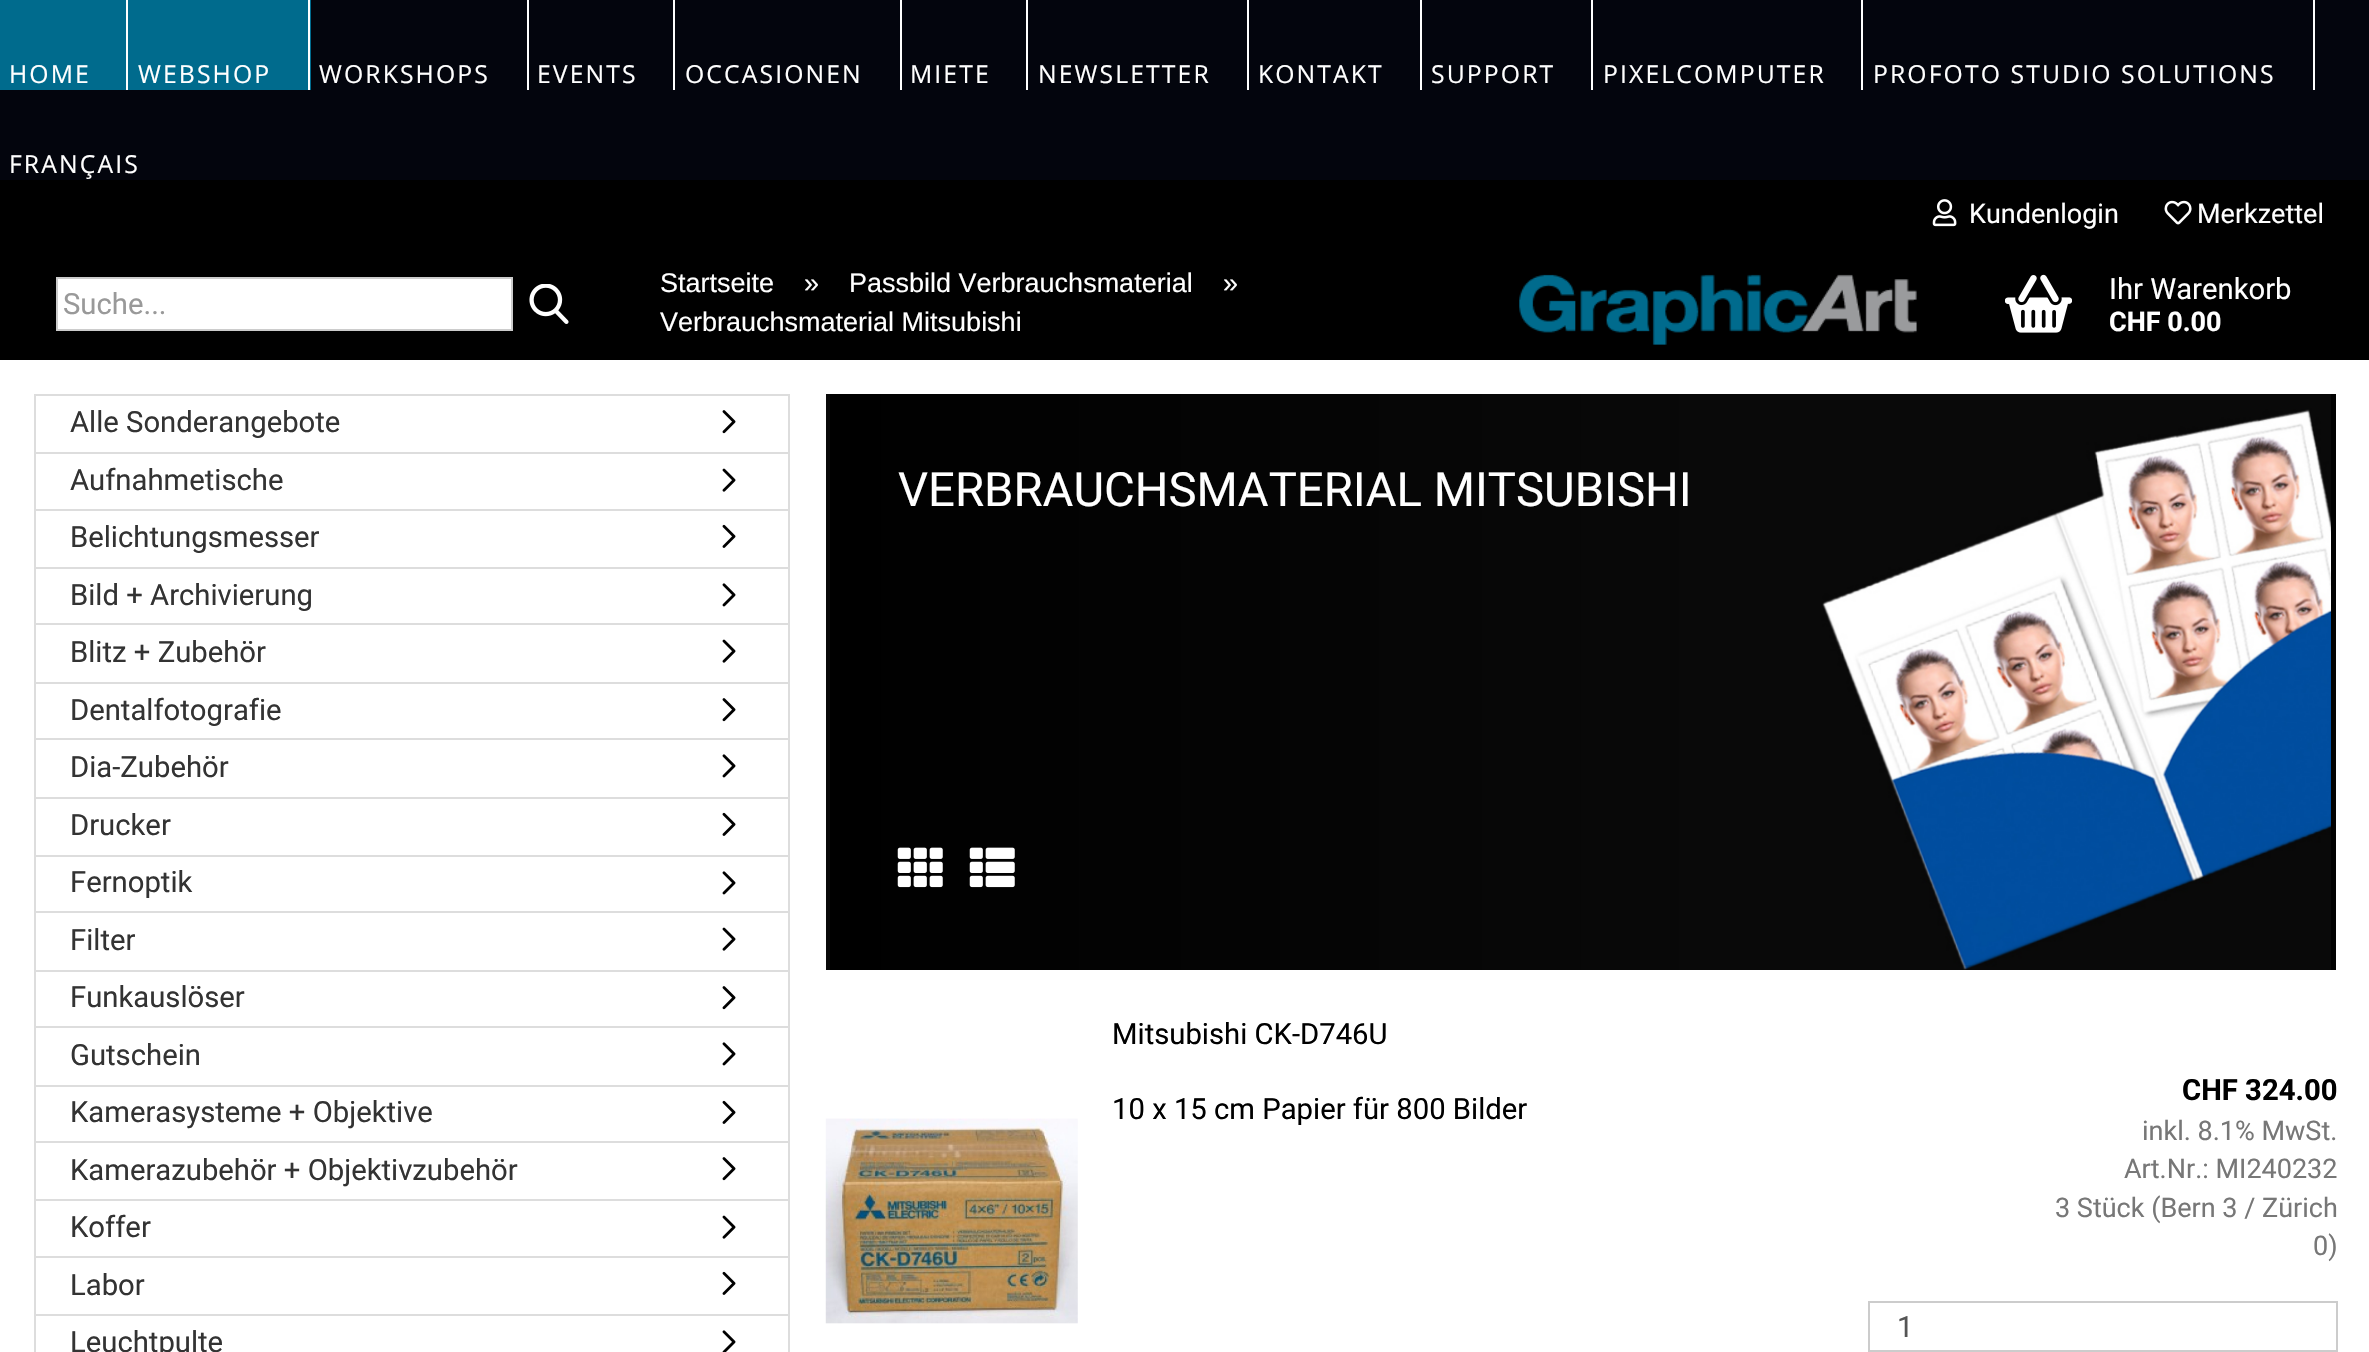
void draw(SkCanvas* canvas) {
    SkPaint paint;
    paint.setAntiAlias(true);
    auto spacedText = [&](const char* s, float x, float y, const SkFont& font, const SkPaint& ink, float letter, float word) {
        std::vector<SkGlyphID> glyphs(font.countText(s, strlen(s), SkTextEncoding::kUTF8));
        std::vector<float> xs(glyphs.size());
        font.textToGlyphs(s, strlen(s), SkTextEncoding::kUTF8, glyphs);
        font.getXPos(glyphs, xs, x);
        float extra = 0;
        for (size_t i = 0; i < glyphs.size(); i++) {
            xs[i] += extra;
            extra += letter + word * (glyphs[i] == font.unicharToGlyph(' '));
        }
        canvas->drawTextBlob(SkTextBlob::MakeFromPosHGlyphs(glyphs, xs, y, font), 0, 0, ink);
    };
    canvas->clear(0xFFFFFFFF);
    paint.setColor(0xFF03050D);
    canvas->drawRect(SkRect::MakeXYWH(0, 0, 2369, 180), paint);
    paint.setColor(0xFF006B8D);
    canvas->drawRect(SkRect::MakeXYWH(0, 0, 126, 90), paint);
    paint.setColor(0xFFFFFFFF);
    canvas->drawRect(SkRect::MakeXYWH(126, 0, 2, 90), paint);
    SkFont font1(fontMgr->matchFamilyStyle("Open Sans", SkFontStyle::Normal()), 24.75f);
    font1.setSubpixel(true);
    spacedText("HOME", 9, 83, font1, paint, 2.1f, 0);
    paint.setColor(0xFF006B8D);
    canvas->drawRect(SkRect::MakeXYWH(128, 0, 183, 90), paint);
    paint.setColor(0xFFFFFFFF);
    canvas->drawRect(SkRect::MakeXYWH(308, 0, 2, 90), paint);
    spacedText("WEBSHOP", 138, 83, font1, paint, 2.1f, 0);
    canvas->drawRect(SkRect::MakeXYWH(527, 0, 2, 90), paint);
    spacedText("WORKSHOPS", 319, 83, font1, paint, 2.1f, 0);
    canvas->drawRect(SkRect::MakeXYWH(673, 0, 2, 90), paint);
    spacedText("EVENTS", 537, 83, font1, paint, 2.1f, 0);
    canvas->drawRect(SkRect::MakeXYWH(900, 0, 2, 90), paint);
    spacedText("OCCASIONEN", 685, 83, font1, paint, 2.1f, 0);
    canvas->drawRect(SkRect::MakeXYWH(1026, 0, 2, 90), paint);
    spacedText("MIETE", 910, 83, font1, paint, 2.1f, 0);
    canvas->drawRect(SkRect::MakeXYWH(1247, 0, 2, 90), paint);
    spacedText("NEWSLETTER", 1038, 83, font1, paint, 2.1f, 0);
    canvas->drawRect(SkRect::MakeXYWH(1420, 0, 2, 90), paint);
    spacedText("KONTAKT", 1258, 83, font1, paint, 2.1f, 0);
    canvas->drawRect(SkRect::MakeXYWH(1591, 0, 2, 90), paint);
    spacedText("SUPPORT", 1431, 83, font1, paint, 2.1f, 0);
    canvas->drawRect(SkRect::MakeXYWH(1861, 0, 2, 90), paint);
    spacedText("PIXELCOMPUTER", 1603, 83, font1, paint, 2.1f, 0);
    canvas->drawRect(SkRect::MakeXYWH(2313, 0, 2, 90), paint);
    spacedText("PROFOTO STUDIO SOLUTIONS", 1873, 83, font1, paint, 2.1f, 0);
    spacedText("FRANÇAIS", 9, 173, font1, paint, 2.1f, 0);
    paint.setColor(0xFF000000);
    canvas->drawRect(SkRect::MakeXYWH(0, 180, 2369, 180), paint);
    canvas->drawImageRect(SkImages::DeferredFromEncodedData(SkData::MakeFromFileName("img1.png")), SkRect::MakeXYWH(1932, 199, 25, 28), SkSamplingOptions());
    SkFont font2(fontMgr->matchFamilyStyle("Roboto", SkFontStyle::Normal()), 27);
    font2.setSubpixel(true);
    paint.setColor(0xFFFFFFFF);
    canvas->drawString("Kundenlogin", 1969, 223, font2, paint);
    canvas->drawImageRect(SkImages::DeferredFromEncodedData(SkData::MakeFromFileName("img2.png")), SkRect::MakeXYWH(2164, 200, 28, 25), SkSamplingOptions());
    canvas->drawString("Merkzettel", 2197, 223, font2, paint);
    canvas->drawRect(SkRect::MakeXYWH(57, 278, 455, 52), paint);
    paint.setStyle(SkPaint::kStroke_Style);
    paint.setStrokeWidth(2);
    paint.setColor(0xFFCCCCCC);
    canvas->drawRect(SkRect::MakeXYWH(57, 278, 455, 52), paint);
    SkFont font3(fontMgr->matchFamilyStyle("Roboto", SkFontStyle::Normal()), 29.25f);
    font3.setSubpixel(true);
    paint.setStyle(SkPaint::kFill_Style);
    paint.setColor(0xFF999999);
    canvas->drawString("Suche...", 63, 314, font3, paint);
    canvas->drawImageRect(SkImages::DeferredFromEncodedData(SkData::MakeFromFileName("img3.png")), SkRect::MakeXYWH(529, 284, 40, 40), SkSamplingOptions());
    SkFont font4(fontMgr->matchFamilyStyle("Liberation Sans", SkFontStyle::Normal()), 27);
    font4.setSubpixel(true);
    paint.setColor(0xFFFFFFFF);
    canvas->drawString("Startseite", 660, 292, font4, paint);
    canvas->drawString("»", 804, 292, font4, paint);
    canvas->drawString("Passbild Verbrauchsmaterial", 849, 292, font4, paint);
    canvas->drawString("»", 1223, 292, font4, paint);
    canvas->drawString("Verbrauchsmaterial Mitsubishi", 660, 331, font4, paint);
    canvas->drawImageRect(SkImages::DeferredFromEncodedData(SkData::MakeFromFileName("img4.png")), SkRect::MakeXYWH(1519, 274, 398, 71), SkSamplingOptions());
    canvas->drawImageRect(SkImages::DeferredFromEncodedData(SkData::MakeFromFileName("img5.png")), SkRect::MakeXYWH(2005, 274, 67, 59), SkSamplingOptions());
    canvas->drawString("Ihr Warenkorb", 2109, 299, font3, paint);
    SkFont font5(fontMgr->matchFamilyStyle("Roboto", SkFontStyle::Bold()), 27);
    font5.setSubpixel(true);
    canvas->drawString("CHF 0.00", 2109, 331, font5, paint);
    paint.setColor(0xFFDDDDDD);
    canvas->drawRect(SkRect::MakeXYWH(34, 394, 756, 2), paint);
    canvas->drawRect(SkRect::MakeXYWH(788, 394, 2, 958), paint);
    canvas->drawRect(SkRect::MakeXYWH(34, 394, 2, 958), paint);
    canvas->drawRect(SkRect::MakeXYWH(36, 452, 752, 2), paint);
    paint.setColor(0xFF333333);
    canvas->drawString("Alle Sonderangebote", 70, 432, font3, paint);
    canvas->drawImageRect(SkImages::DeferredFromEncodedData(SkData::MakeFromFileName("img6.png")), SkRect::MakeXYWH(722, 410, 14, 24), SkSamplingOptions());
    paint.setColor(0xFFDDDDDD);
    canvas->drawRect(SkRect::MakeXYWH(36, 509, 752, 2), paint);
    paint.setColor(0xFF333333);
    canvas->drawString("Aufnahmetische", 70, 490, font3, paint);
    canvas->drawImageRect(SkImages::DeferredFromEncodedData(SkData::MakeFromFileName("img7.png")), SkRect::MakeXYWH(722, 468, 14, 24), SkSamplingOptions());
    paint.setColor(0xFFDDDDDD);
    canvas->drawRect(SkRect::MakeXYWH(36, 567, 752, 2), paint);
    paint.setColor(0xFF333333);
    canvas->drawString("Belichtungsmesser", 70, 547, font3, paint);
    canvas->drawImageRect(SkImages::DeferredFromEncodedData(SkData::MakeFromFileName("img8.png")), SkRect::MakeXYWH(722, 524, 14, 24), SkSamplingOptions());
    paint.setColor(0xFFDDDDDD);
    canvas->drawRect(SkRect::MakeXYWH(36, 623, 752, 2), paint);
    paint.setColor(0xFF333333);
    canvas->drawString("Bild + Archivierung", 70, 605, font3, paint);
    canvas->drawImageRect(SkImages::DeferredFromEncodedData(SkData::MakeFromFileName("img9.png")), SkRect::MakeXYWH(722, 583, 14, 24), SkSamplingOptions());
    paint.setColor(0xFFDDDDDD);
    canvas->drawRect(SkRect::MakeXYWH(36, 682, 752, 2), paint);
    paint.setColor(0xFF333333);
    canvas->drawString("Blitz + Zubehör", 70, 662, font3, paint);
    canvas->drawImageRect(SkImages::DeferredFromEncodedData(SkData::MakeFromFileName("img7.png")), SkRect::MakeXYWH(722, 639, 14, 24), SkSamplingOptions());
    paint.setColor(0xFFDDDDDD);
    canvas->drawRect(SkRect::MakeXYWH(36, 738, 752, 2), paint);
    paint.setColor(0xFF333333);
    canvas->drawString("Dentalfotografie", 70, 720, font3, paint);
    canvas->drawImageRect(SkImages::DeferredFromEncodedData(SkData::MakeFromFileName("img6.png")), SkRect::MakeXYWH(722, 698, 14, 24), SkSamplingOptions());
    paint.setColor(0xFFDDDDDD);
    canvas->drawRect(SkRect::MakeXYWH(36, 797, 752, 2), paint);
    paint.setColor(0xFF333333);
    canvas->drawString("Dia-Zubehör", 70, 777, font3, paint);
    canvas->drawImageRect(SkImages::DeferredFromEncodedData(SkData::MakeFromFileName("img9.png")), SkRect::MakeXYWH(722, 754, 14, 24), SkSamplingOptions());
    paint.setColor(0xFFDDDDDD);
    canvas->drawRect(SkRect::MakeXYWH(36, 855, 752, 2), paint);
    paint.setColor(0xFF333333);
    canvas->drawString("Drucker", 70, 835, font3, paint);
    canvas->drawImageRect(SkImages::DeferredFromEncodedData(SkData::MakeFromFileName("img8.png")), SkRect::MakeXYWH(722, 812, 14, 24), SkSamplingOptions());
    paint.setColor(0xFFDDDDDD);
    canvas->drawRect(SkRect::MakeXYWH(36, 911, 752, 2), paint);
    paint.setColor(0xFF333333);
    canvas->drawString("Fernoptik", 70, 892, font3, paint);
    canvas->drawImageRect(SkImages::DeferredFromEncodedData(SkData::MakeFromFileName("img9.png")), SkRect::MakeXYWH(722, 871, 14, 24), SkSamplingOptions());
    paint.setColor(0xFFDDDDDD);
    canvas->drawRect(SkRect::MakeXYWH(36, 970, 752, 2), paint);
    paint.setColor(0xFF333333);
    canvas->drawString("Filter", 70, 950, font3, paint);
    canvas->drawImageRect(SkImages::DeferredFromEncodedData(SkData::MakeFromFileName("img7.png")), SkRect::MakeXYWH(722, 927, 14, 24), SkSamplingOptions());
    paint.setColor(0xFFDDDDDD);
    canvas->drawRect(SkRect::MakeXYWH(36, 1026, 752, 2), paint);
    paint.setColor(0xFF333333);
    canvas->drawString("Funkauslöser", 70, 1007, font3, paint);
    canvas->drawImageRect(SkImages::DeferredFromEncodedData(SkData::MakeFromFileName("img6.png")), SkRect::MakeXYWH(722, 986, 14, 24), SkSamplingOptions());
    paint.setColor(0xFFDDDDDD);
    canvas->drawRect(SkRect::MakeXYWH(36, 1085, 752, 2), paint);
    paint.setColor(0xFF333333);
    canvas->drawString("Gutschein", 70, 1065, font3, paint);
    canvas->drawImageRect(SkImages::DeferredFromEncodedData(SkData::MakeFromFileName("img9.png")), SkRect::MakeXYWH(722, 1042, 14, 24), SkSamplingOptions());
    paint.setColor(0xFFDDDDDD);
    canvas->drawRect(SkRect::MakeXYWH(36, 1141, 752, 2), paint);
    paint.setColor(0xFF333333);
    canvas->drawString("Kamerasysteme + Objektive", 70, 1122, font3, paint);
    canvas->drawImageRect(SkImages::DeferredFromEncodedData(SkData::MakeFromFileName("img8.png")), SkRect::MakeXYWH(722, 1100, 14, 24), SkSamplingOptions());
    paint.setColor(0xFFDDDDDD);
    canvas->drawRect(SkRect::MakeXYWH(36, 1199, 752, 2), paint);
    paint.setColor(0xFF333333);
    canvas->drawString("Kamerazubehör + Objektivzubehör", 70, 1180, font3, paint);
    canvas->drawImageRect(SkImages::DeferredFromEncodedData(SkData::MakeFromFileName("img6.png")), SkRect::MakeXYWH(722, 1157, 14, 24), SkSamplingOptions());
    paint.setColor(0xFFDDDDDD);
    canvas->drawRect(SkRect::MakeXYWH(36, 1256, 752, 2), paint);
    paint.setColor(0xFF333333);
    canvas->drawString("Koffer", 70, 1237, font3, paint);
    canvas->drawImageRect(SkImages::DeferredFromEncodedData(SkData::MakeFromFileName("img7.png")), SkRect::MakeXYWH(722, 1215, 14, 24), SkSamplingOptions());
    paint.setColor(0xFFDDDDDD);
    canvas->drawRect(SkRect::MakeXYWH(36, 1314, 752, 2), paint);
    paint.setColor(0xFF333333);
    canvas->drawString("Labor", 70, 1295, font3, paint);
    canvas->drawImageRect(SkImages::DeferredFromEncodedData(SkData::MakeFromFileName("img8.png")), SkRect::MakeXYWH(722, 1271, 14, 24), SkSamplingOptions());
    canvas->drawString("Leuchtpulte", 70, 1352, font3, paint);
    canvas->drawImageRect(SkImages::DeferredFromEncodedData(SkData::MakeFromFileName("img10.png")), SkRect::MakeXYWH(722, 1330, 14, 22), SkSamplingOptions());
    canvas->drawImageRect(SkImages::DeferredFromEncodedData(SkData::MakeFromFileName("img11.png")), SkRect::MakeXYWH(826, 394, 1505, 576), SkSamplingOptions());
    {
        const SkColor colors[] = {0xFF000000, 0x00000000};
        const float stops[] = {0, 0.6f};
        const SkPoint ends[] = {{2331, 682}, {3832, 682}};
        paint.setShader(SkGradientShader::MakeLinear(ends, colors, stops, 2, SkTileMode::kClamp));
        paint.setAlpha(255);
    }
    canvas->drawRect(SkRect::MakeXYWH(2331, 394, 5, 576), paint);
    paint.setShader(nullptr);
    paint.setColor(0x14000000);
    canvas->drawPath(SkPathBuilder().moveTo(2336, 970).lineTo(826, 970).lineTo(830, 965).lineTo(2331, 965).close().detach(), paint);
    SkFont font6(fontMgr->matchFamilyStyle("Roboto", SkFontStyle::Normal()), 47.25f);
    font6.setSubpixel(true);
    paint.setColor(0xFFFFFFFF);
    canvas->drawString("VERBRAUCHSMATERIAL MITSUBISHI", 898, 506, font6, paint);
    canvas->drawImageRect(SkImages::DeferredFromEncodedData(SkData::MakeFromFileName("img12.png")), SkRect::MakeXYWH(897, 847, 46, 41), SkSamplingOptions());
    canvas->drawImageRect(SkImages::DeferredFromEncodedData(SkData::MakeFromFileName("img13.png")), SkRect::MakeXYWH(969, 847, 46, 41), SkSamplingOptions());
    canvas->drawImageRect(SkImages::DeferredFromEncodedData(SkData::MakeFromFileName("img14.png")), SkRect::MakeXYWH(825, 1118, 253, 206), SkSamplingOptions());
    paint.setColor(0xFF000000);
    canvas->drawString("Mitsubishi CK-D746U", 1112, 1044, font3, paint);
    canvas->drawString("10 x 15 cm Papier für 800 Bilder", 1112, 1119, font3, paint);
    SkFont font7(fontMgr->matchFamilyStyle("Roboto", SkFontStyle::Bold()), 29.25f);
    font7.setSubpixel(true);
    canvas->drawString("CHF 324.00", 2182, 1100, font7, paint);
    paint.setColor(0xFF777777);
    canvas->drawString("inkl. 8.1% MwSt.", 2142, 1140, font2, paint);
    canvas->drawString("Art.Nr.: MI240232", 2124, 1178, font2, paint);
    canvas->drawString("3 Stück (Bern 3 / Zürich", 2055, 1217, font2, paint);
    canvas->drawString("0)", 2313, 1255, font2, paint);
    paint.setStyle(SkPaint::kStroke_Style);
    paint.setColor(0xFFCCCCCC);
    canvas->drawRect(SkRect::MakeXYWH(1869, 1302, 468, 49), paint);
    paint.setStyle(SkPaint::kFill_Style);
    paint.setColor(0xFF555555);
    canvas->drawString("1", 1897, 1337, font3, paint);
}
